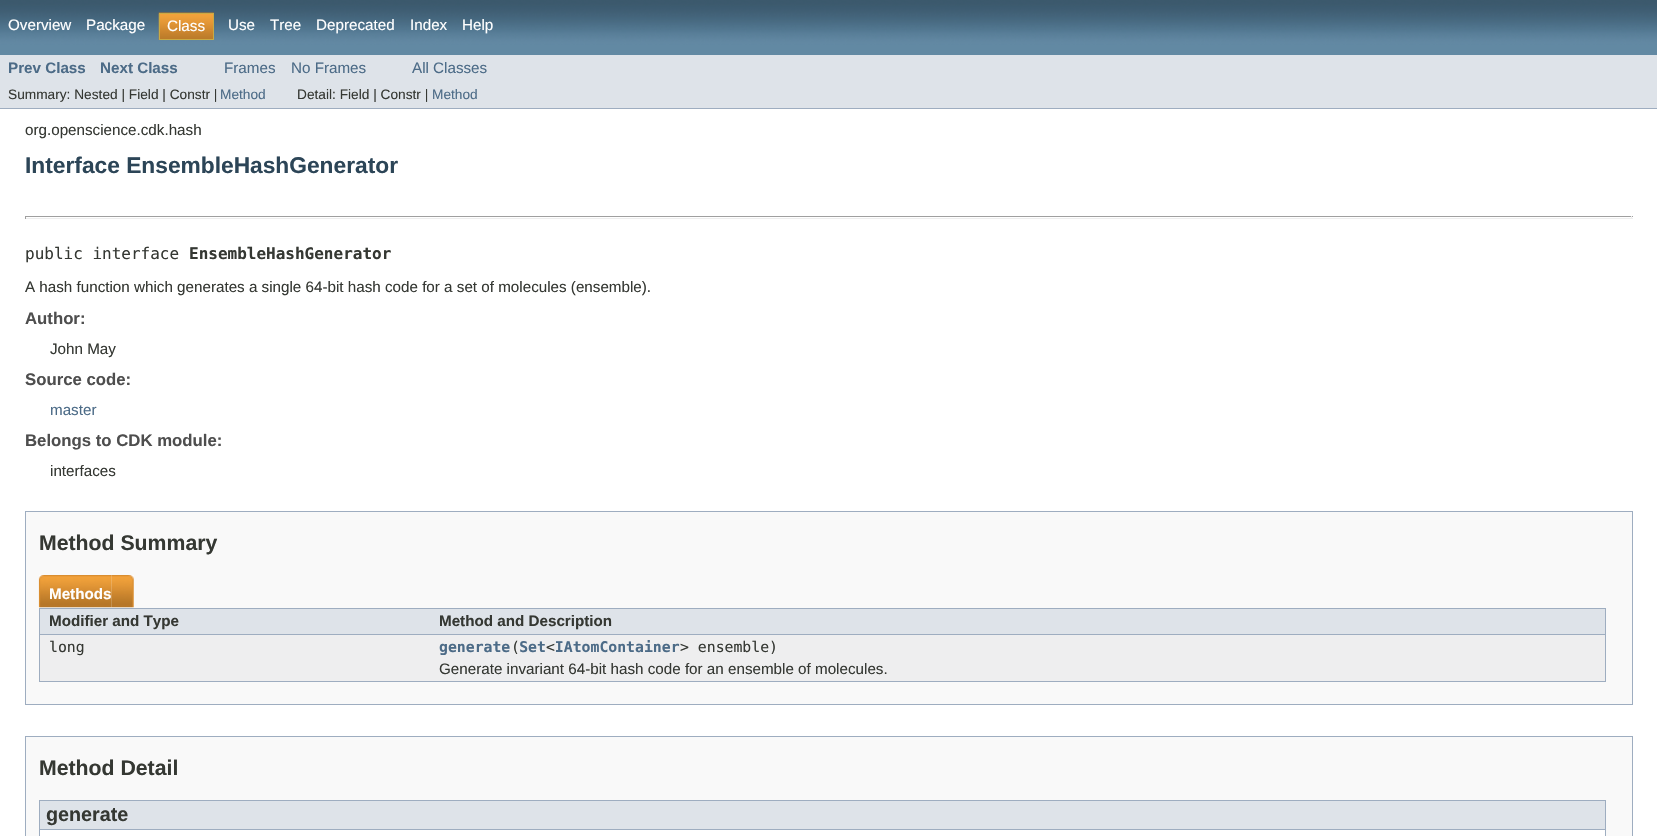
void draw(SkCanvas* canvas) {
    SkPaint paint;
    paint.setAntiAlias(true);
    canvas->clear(0xFFFFFFFF);
    canvas->drawImageRect(SkImages::DeferredFromEncodedData(SkData::MakeFromFileName("img1.png")), SkRect::MakeXYWH(0, 0, 1657, 55), SkSamplingOptions());
    SkFont font1(fontMgr->matchFamilyStyle("Liberation Sans", SkFontStyle::Normal()), 15.2f);
    font1.setSubpixel(true);
    paint.setColor(0xFFFFFFFF);
    canvas->drawString("Overview", 8, 30, font1, paint);
    canvas->drawString("Package", 86, 30, font1, paint);
    canvas->drawImageRect(SkImages::DeferredFromEncodedData(SkData::MakeFromFileName("img2.png")), SkRect::MakeXYWH(158, 12, 56, 28), SkSamplingOptions());
    paint.setStyle(SkPaint::kStroke_Style);
    paint.setStrokeWidth(1);
    paint.setColor(0xFFC9AA44);
    canvas->drawRect(SkRect::MakeXYWH(159.5f, 13.5f, 54, 26), paint);
    paint.setStyle(SkPaint::kFill_Style);
    paint.setColor(0xFFFFFFFF);
    canvas->drawString("Class", 167, 31, font1, paint);
    canvas->drawString("Use", 228, 30, font1, paint);
    canvas->drawString("Tree", 270, 30, font1, paint);
    canvas->drawString("Deprecated", 316, 30, font1, paint);
    canvas->drawString("Index", 410, 30, font1, paint);
    canvas->drawString("Help", 462, 30, font1, paint);
    paint.setColor(0xFFDEE3E9);
    canvas->drawRect(SkRect::MakeXYWH(0, 55, 1657, 53), paint);
    paint.setColor(0xFF9EADC0);
    canvas->drawRect(SkRect::MakeXYWH(0, 108, 1657, 1), paint);
    SkFont font2(fontMgr->matchFamilyStyle("Liberation Sans", SkFontStyle::Bold()), 15.2f);
    font2.setSubpixel(true);
    paint.setColor(0xFF4C6B87);
    canvas->drawString("Prev Class", 8, 73, font2, paint);
    canvas->drawString("Next Class", 100, 73, font2, paint);
    canvas->drawString("Frames", 224, 73, font1, paint);
    canvas->drawString("No Frames", 291, 73, font1, paint);
    canvas->drawString("All Classes", 412, 73, font1, paint);
    SkFont font3(fontMgr->matchFamilyStyle("Liberation Sans", SkFontStyle::Normal()), 13.7f);
    font3.setSubpixel(true);
    paint.setColor(0xFF353833);
    canvas->drawString("Summary: Nested | Field | Constr |", 8, 99, font3, paint);
    paint.setColor(0xFF4C6B87);
    canvas->drawString("Method", 220, 99, font3, paint);
    paint.setColor(0xFF353833);
    canvas->drawString("Detail: Field | Constr |", 297, 99, font3, paint);
    paint.setColor(0xFF4C6B87);
    canvas->drawString("Method", 432, 99, font3, paint);
    paint.setColor(0xFF353833);
    canvas->drawString("org.openscience.cdk.hash", 25, 135, font1, paint);
    SkFont font4(fontMgr->matchFamilyStyle("Liberation Sans", SkFontStyle::Bold()), 22.75f);
    font4.setSubpixel(true);
    paint.setColor(0xFF2C4557);
    canvas->drawString("Interface EnsembleHashGenerator", 25, 173, font4, paint);
    paint.setColor(0xFF9F9F9F);
    canvas->drawRect(SkRect::MakeXYWH(25, 216, 1608, 1), paint);
    paint.setColor(0xFFEEEEEE);
    canvas->drawRect(SkRect::MakeXYWH(1631, 216, 1, 3), paint);
    canvas->drawRect(SkRect::MakeXYWH(25, 218, 1608, 1), paint);
    paint.setColor(0xFF9F9F9F);
    canvas->drawRect(SkRect::MakeXYWH(25, 216, 1, 3), paint);
    SkFont font5(fontMgr->matchFamilyStyle("DejaVu Sans Mono", SkFontStyle::Normal()), 16);
    font5.setSubpixel(true);
    paint.setColor(0xFF353833);
    canvas->drawString("public interface", 25, 259, font5, paint);
    SkFont font6(fontMgr->matchFamilyStyle("DejaVu Sans Mono", SkFontStyle::Bold()), 16);
    font6.setSubpixel(true);
    canvas->drawString("EnsembleHashGenerator", 189, 259, font6, paint);
    canvas->drawString("A hash function which generates a single 64-bit hash code for a set of molecules (ensemble).", 25, 292, font1, paint);
    SkFont font7(fontMgr->matchFamilyStyle("Liberation Sans", SkFontStyle::Bold()), 16.75f);
    font7.setSubpixel(true);
    paint.setColor(0xFF4E4E4E);
    canvas->drawString("Author:", 25, 324, font7, paint);
    paint.setColor(0xFF353833);
    canvas->drawString("John May", 50, 354, font1, paint);
    paint.setColor(0xFF4E4E4E);
    canvas->drawString("Source code:", 25, 385, font7, paint);
    paint.setColor(0xFF4C6B87);
    canvas->drawString("master", 50, 415, font1, paint);
    paint.setColor(0xFF4E4E4E);
    canvas->drawString("Belongs to CDK module:", 25, 446, font7, paint);
    paint.setColor(0xFF353833);
    canvas->drawString("interfaces", 50, 476, font1, paint);
    paint.setColor(0xFFF9F9F9);
    canvas->drawRect(SkRect::MakeXYWH(25.5f, 511.5f, 1607, 193), paint);
    paint.setStyle(SkPaint::kStroke_Style);
    paint.setColor(0xFF9EADC0);
    canvas->drawRect(SkRect::MakeXYWH(25.5f, 511.5f, 1607, 193), paint);
    SkFont font8(fontMgr->matchFamilyStyle("Liberation Sans", SkFontStyle::Bold()), 21.25f);
    font8.setSubpixel(true);
    paint.setStyle(SkPaint::kFill_Style);
    paint.setColor(0xFF353833);
    canvas->drawString("Method Summary", 39, 550, font8, paint);
    paint.setColor(0xFF9EADC0);
    canvas->drawRect(SkRect::MakeXYWH(39, 681, 1567, 1), paint);
    canvas->drawImageRect(SkImages::DeferredFromEncodedData(SkData::MakeFromFileName("img3.png")), SkRect::MakeXYWH(38, 575, 74, 33), SkSamplingOptions());
    paint.setColor(0xFFFFFFFF);
    canvas->drawString("Methods", 49, 599, font2, paint);
    canvas->drawImageRect(SkImages::DeferredFromEncodedData(SkData::MakeFromFileName("img4.png")), SkRect::MakeXYWH(111, 575, 23, 33), SkSamplingOptions());
    paint.setColor(0xFFDEE3E9);
    canvas->drawRect(SkRect::MakeXYWH(40, 609, 1565, 25), paint);
    paint.setColor(0xFF9EADC0);
    canvas->drawRect(SkRect::MakeXYWH(39, 608, 1567, 1), paint);
    canvas->drawRect(SkRect::MakeXYWH(39, 634, 392, 1), paint);
    canvas->drawRect(SkRect::MakeXYWH(39, 608, 1, 73), paint);
    paint.setColor(0xFF353833);
    canvas->drawString("Modifier and Type", 49, 626, font2, paint);
    paint.setColor(0xFF9EADC0);
    canvas->drawRect(SkRect::MakeXYWH(1605, 608, 1, 73), paint);
    canvas->drawRect(SkRect::MakeXYWH(431, 634, 1175, 1), paint);
    paint.setColor(0xFF353833);
    canvas->drawString("Method and Description", 439, 626, font2, paint);
    paint.setColor(0xFFEEEEEF);
    canvas->drawRect(SkRect::MakeXYWH(40, 635, 1565, 46), paint);
    SkFont font9(fontMgr->matchFamilyStyle("DejaVu Sans Mono", SkFontStyle::Normal()), 14.8f);
    font9.setSubpixel(true);
    paint.setColor(0xFF353833);
    canvas->drawString("long", 49, 652, font9, paint);
    SkFont font10(fontMgr->matchFamilyStyle("DejaVu Sans Mono", SkFontStyle::Bold()), 14.8f);
    font10.setSubpixel(true);
    paint.setColor(0xFF4C6B87);
    canvas->drawString("generate Set IAtomContainer", 439, 652, font10, paint);
    paint.setColor(0xFF353833);
    canvas->drawString("(", 511, 652, font9, paint);
    canvas->drawString("<", 546, 652, font9, paint);
    canvas->drawString("> ensemble)", 680, 652, font9, paint);
    canvas->drawString("Generate invariant 64-bit hash code for an ensemble of molecules.", 439, 674, font1, paint);
    paint.setColor(0xFFF9F9F9);
    canvas->drawRect(SkRect::MakeXYWH(25.5f, 736.5f, 1607, 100), paint);
    paint.setStyle(SkPaint::kStroke_Style);
    paint.setColor(0xFF9EADC0);
    canvas->drawRect(SkRect::MakeXYWH(25.5f, 736.5f, 1607, 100), paint);
    paint.setStyle(SkPaint::kFill_Style);
    paint.setColor(0xFF353833);
    canvas->drawString("Method Detail", 39, 775, font8, paint);
    paint.setColor(0xFFFFFFFF);
    canvas->drawRect(SkRect::MakeXYWH(40, 830, 1565, 6), paint);
    paint.setColor(0xFF9EADC0);
    canvas->drawRect(SkRect::MakeXYWH(1605, 800, 1, 36), paint);
    canvas->drawRect(SkRect::MakeXYWH(39, 800, 1, 36), paint);
    paint.setColor(0xFFDEE3E9);
    canvas->drawRect(SkRect::MakeXYWH(40, 801, 1565, 28), paint);
    paint.setColor(0xFF9EADC0);
    canvas->drawRect(SkRect::MakeXYWH(40, 800, 1565, 1), paint);
    canvas->drawRect(SkRect::MakeXYWH(40, 829, 1565, 1), paint);
    SkFont font11(fontMgr->matchFamilyStyle("Liberation Sans", SkFontStyle::Bold()), 19.75f);
    font11.setSubpixel(true);
    paint.setColor(0xFF353833);
    canvas->drawString("generate", 46, 821, font11, paint);
}
